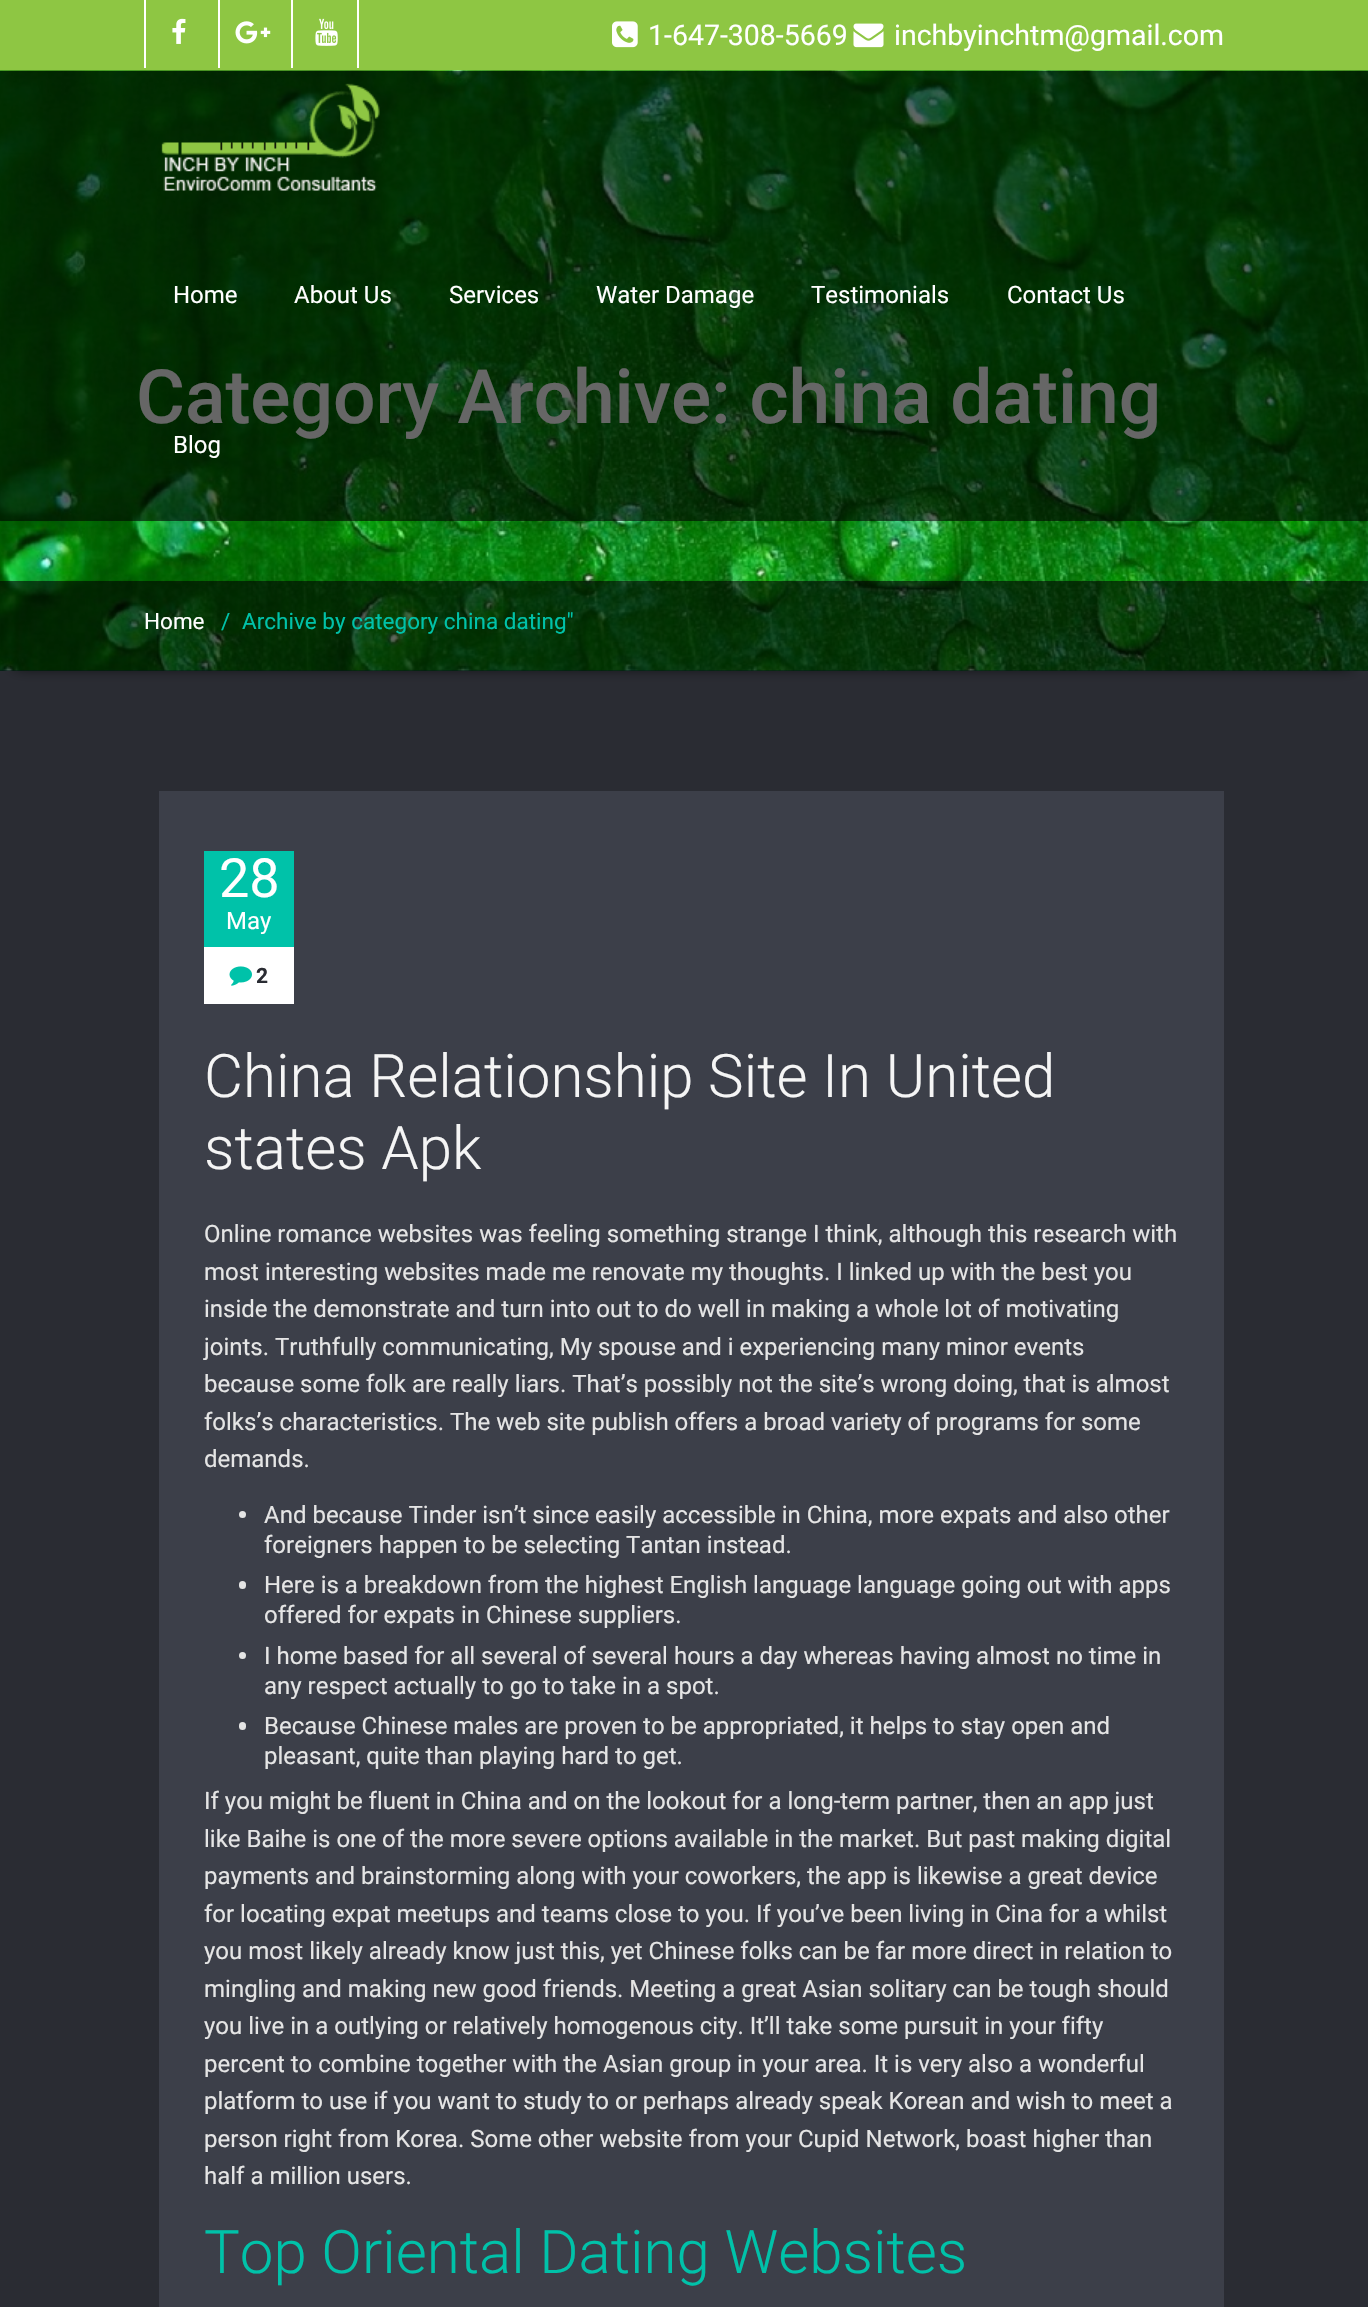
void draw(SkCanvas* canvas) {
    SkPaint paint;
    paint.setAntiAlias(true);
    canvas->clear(0xFF2A2C33);
    paint.setColor(0xFF8EC643);
    canvas->drawRect(SkRect::MakeXYWH(0, 0, 1368, 71), paint);
    paint.setColor(0xFFFFFFFF);
    canvas->drawRect(SkRect::MakeXYWH(144, 0, 2, 68), paint);
    canvas->drawImageRect(SkImages::DeferredFromEncodedData(SkData::MakeFromFileName("img1.png")), SkRect::MakeXYWH(172, 18, 14, 26), SkSamplingOptions());
    canvas->drawRect(SkRect::MakeXYWH(218, 0, 2, 68), paint);
    canvas->drawImageRect(SkImages::DeferredFromEncodedData(SkData::MakeFromFileName("img2.png")), SkRect::MakeXYWH(235, 21, 36, 23), SkSamplingOptions());
    canvas->drawRect(SkRect::MakeXYWH(357, 0, 2, 68), paint);
    canvas->drawRect(SkRect::MakeXYWH(291, 0, 2, 68), paint);
    canvas->drawImageRect(SkImages::DeferredFromEncodedData(SkData::MakeFromFileName("img3.png")), SkRect::MakeXYWH(315, 18, 23, 28), SkSamplingOptions());
    canvas->drawImageRect(SkImages::DeferredFromEncodedData(SkData::MakeFromFileName("img4.png")), SkRect::MakeXYWH(612, 21, 26, 27), SkSamplingOptions());
    SkFont font1(fontMgr->matchFamilyStyle("Roboto", SkFontStyle::Normal()), 28.5f);
    font1.setSubpixel(true);
    canvas->drawString("1-647-308-5669", 648, 45, font1, paint);
    canvas->drawImageRect(SkImages::DeferredFromEncodedData(SkData::MakeFromFileName("img5.png")), SkRect::MakeXYWH(853, 23, 31, 25), SkSamplingOptions());
    canvas->drawString("inchbyinchtm@gmail.com", 894, 45, font1, paint);
    paint.setColor(0xFF000000);
    paint.setMaskFilter(SkMaskFilter::MakeBlur(kNormal_SkBlurStyle, 7.5f));
    canvas->drawRect(SkRect::MakeXYWH(15, 96, 1338, 570), paint);
    paint.setMaskFilter(nullptr);
    paint.setColor(0xFF143745);
    canvas->drawRect(SkRect::MakeXYWH(0, 670, 1368, 1), paint);
    canvas->drawImageRect(SkImages::DeferredFromEncodedData(SkData::MakeFromFileName("img7.png")), SkRect::MakeXYWH(0, 70, 1368, 601), SkSamplingOptions());
    SkFont font2(fontMgr->matchFamilyStyle("Roboto", SkFontStyle(500, SkFontStyle::kNormal_Width, SkFontStyle::kUpright_Slant)), 75);
    font2.setSubpixel(true);
    paint.setColor(0xFFFFFFFF);
    canvas->drawString("Category Archive: china dating", 136, 423, font2, paint);
    paint.setColor(0x99000000);
    canvas->drawRect(SkRect::MakeXYWH(0, 71, 1368, 450), paint);
    canvas->drawImageRect(SkImages::DeferredFromEncodedData(SkData::MakeFromFileName("img6.png")), SkRect::MakeXYWH(161, 83, 219, 108), SkSamplingOptions());
    SkFont font3(fontMgr->matchFamilyStyle("Roboto", SkFontStyle::Normal()), 24);
    font3.setSubpixel(true);
    paint.setColor(0xFFFFFFFF);
    canvas->drawString("Home", 173, 303, font3, paint);
    canvas->drawString("About Us", 294, 303, font3, paint);
    canvas->drawString("Services", 449, 303, font3, paint);
    canvas->drawString("Water Damage", 596, 303, font3, paint);
    canvas->drawString("Testimonials", 811, 303, font3, paint);
    canvas->drawString("Contact Us", 1007, 303, font3, paint);
    canvas->drawString("Blog", 173, 453, font3, paint);
    paint.setColor(0x99000000);
    canvas->drawRect(SkRect::MakeXYWH(0, 581, 1368, 90), paint);
    SkFont font4(fontMgr->matchFamilyStyle("Roboto", SkFontStyle::Normal()), 22.5f);
    font4.setSubpixel(true);
    paint.setColor(0xFFFFFFFF);
    canvas->drawString("Home", 144, 629, font4, paint);
    paint.setColor(0xFF00C2A9);
    canvas->drawString("/", 221, 629, font4, paint);
    canvas->drawString("Archive by category china dating\"", 242, 629, font4, paint);
    paint.setColor(0xFF3C3F49);
    canvas->drawRect(SkRect::MakeXYWH(159, 791, 1065, 1516), paint);
    paint.setColor(0xFFFFFFFF);
    canvas->drawRect(SkRect::MakeXYWH(204, 947, 90, 57), paint);
    paint.setColor(0xFF00C2A9);
    canvas->drawRect(SkRect::MakeXYWH(204, 851, 90, 96), paint);
    SkFont font5(fontMgr->matchFamilyStyle("Roboto", SkFontStyle::Normal()), 54);
    font5.setSubpixel(true);
    paint.setColor(0xFFFFFFFF);
    canvas->drawString("28", 219, 897, font5, paint);
    canvas->drawString("May", 226, 929, font3, paint);
    canvas->drawImageRect(SkImages::DeferredFromEncodedData(SkData::MakeFromFileName("img8.png")), SkRect::MakeXYWH(229, 966, 23, 20), SkSamplingOptions());
    SkFont font6(fontMgr->matchFamilyStyle("Roboto", SkFontStyle::Bold()), 21);
    font6.setSubpixel(true);
    paint.setColor(0xFF2A2C33);
    canvas->drawString("2", 256, 983, font6, paint);
    SkFont font7(fontMgr->matchFamilyStyle("Roboto", SkFontStyle(300, SkFontStyle::kNormal_Width, SkFontStyle::kUpright_Slant)), 60);
    font7.setSubpixel(true);
    paint.setColor(0xFFF5F5F5);
    canvas->drawString("China Relationship Site In United", 204, 1097, font7, paint);
    canvas->drawString("states Apk", 204, 1169, font7, paint);
    paint.setColor(0xFFE5E5E5);
    canvas->drawString("Online romance websites was feeling something strange I think, although this research with", 204, 1242, font3, paint);
    canvas->drawString("most interesting websites made me renovate my thoughts. I linked up with the best you", 204, 1280, font3, paint);
    canvas->drawString("inside the demonstrate and turn into out to do well in making a whole lot of motivating", 204, 1317, font3, paint);
    canvas->drawString("joints. Truthfully communicating, My spouse and i experiencing many minor events", 204, 1355, font3, paint);
    canvas->drawString("because some folk are really liars. That’s possibly not the site’s wrong doing, that is almost", 204, 1392, font3, paint);
    canvas->drawString("folks’s characteristics. The web site publish offers a broad variety of programs for some", 204, 1430, font3, paint);
    canvas->drawString("demands.", 204, 1467, font3, paint);
    canvas->drawCircle(242.5f, 1514.5f, 3.5f, paint);
    canvas->drawString("And because Tinder isn’t since easily accessible in China, more expats and also other", 264, 1523, font3, paint);
    canvas->drawString("foreigners happen to be selecting Tantan instead.", 264, 1553, font3, paint);
    canvas->drawRoundRect(SkRect::MakeXYWH(239, 1581, 7, 8), 3.5f, 3.5f, paint);
    canvas->drawString("Here is a breakdown from the highest English language language going out with apps", 264, 1593, font3, paint);
    canvas->drawString("offered for expats in Chinese suppliers.", 264, 1623, font3, paint);
    canvas->drawCircle(242.5f, 1655.5f, 3.5f, paint);
    canvas->drawString("I home based for all several of several hours a day whereas having almost no time in", 264, 1664, font3, paint);
    canvas->drawString("any respect actually to go to take in a spot.", 264, 1694, font3, paint);
    canvas->drawRoundRect(SkRect::MakeXYWH(239, 1722, 7, 8), 3.5f, 3.5f, paint);
    canvas->drawString("Because Chinese males are proven to be appropriated, it helps to stay open and", 264, 1734, font3, paint);
    canvas->drawString("pleasant, quite than playing hard to get.", 264, 1764, font3, paint);
    canvas->drawString("If you might be fluent in China and on the lookout for a long-term partner, then an app just", 204, 1809, font3, paint);
    canvas->drawString("like Baihe is one of the more severe options available in the market. But past making digital", 204, 1847, font3, paint);
    canvas->drawString("payments and brainstorming along with your coworkers, the app is likewise a great device", 204, 1884, font3, paint);
    canvas->drawString("for locating expat meetups and teams close to you. If you’ve been living in Cina for a whilst", 204, 1922, font3, paint);
    canvas->drawString("you most likely already know just this, yet Chinese folks can be far more direct in relation to", 204, 1959, font3, paint);
    canvas->drawString("mingling and making new good friends. Meeting a great Asian solitary can be tough should", 204, 1997, font3, paint);
    canvas->drawString("you live in a outlying or relatively homogenous city. It’ll take some pursuit in your fifty", 204, 2034, font3, paint);
    canvas->drawString("percent to combine together with the Asian group in your area. It is very also a wonderful", 204, 2072, font3, paint);
    canvas->drawString("platform to use if you want to study to or perhaps already speak Korean and wish to meet a", 204, 2109, font3, paint);
    canvas->drawString("person right from Korea. Some other website from your Cupid Network, boast higher than", 204, 2147, font3, paint);
    canvas->drawString("half a million users.", 204, 2184, font3, paint);
    paint.setColor(0xFF00C2A9);
    canvas->drawString("Top Oriental Dating Websites", 204, 2273, font7, paint);
}
